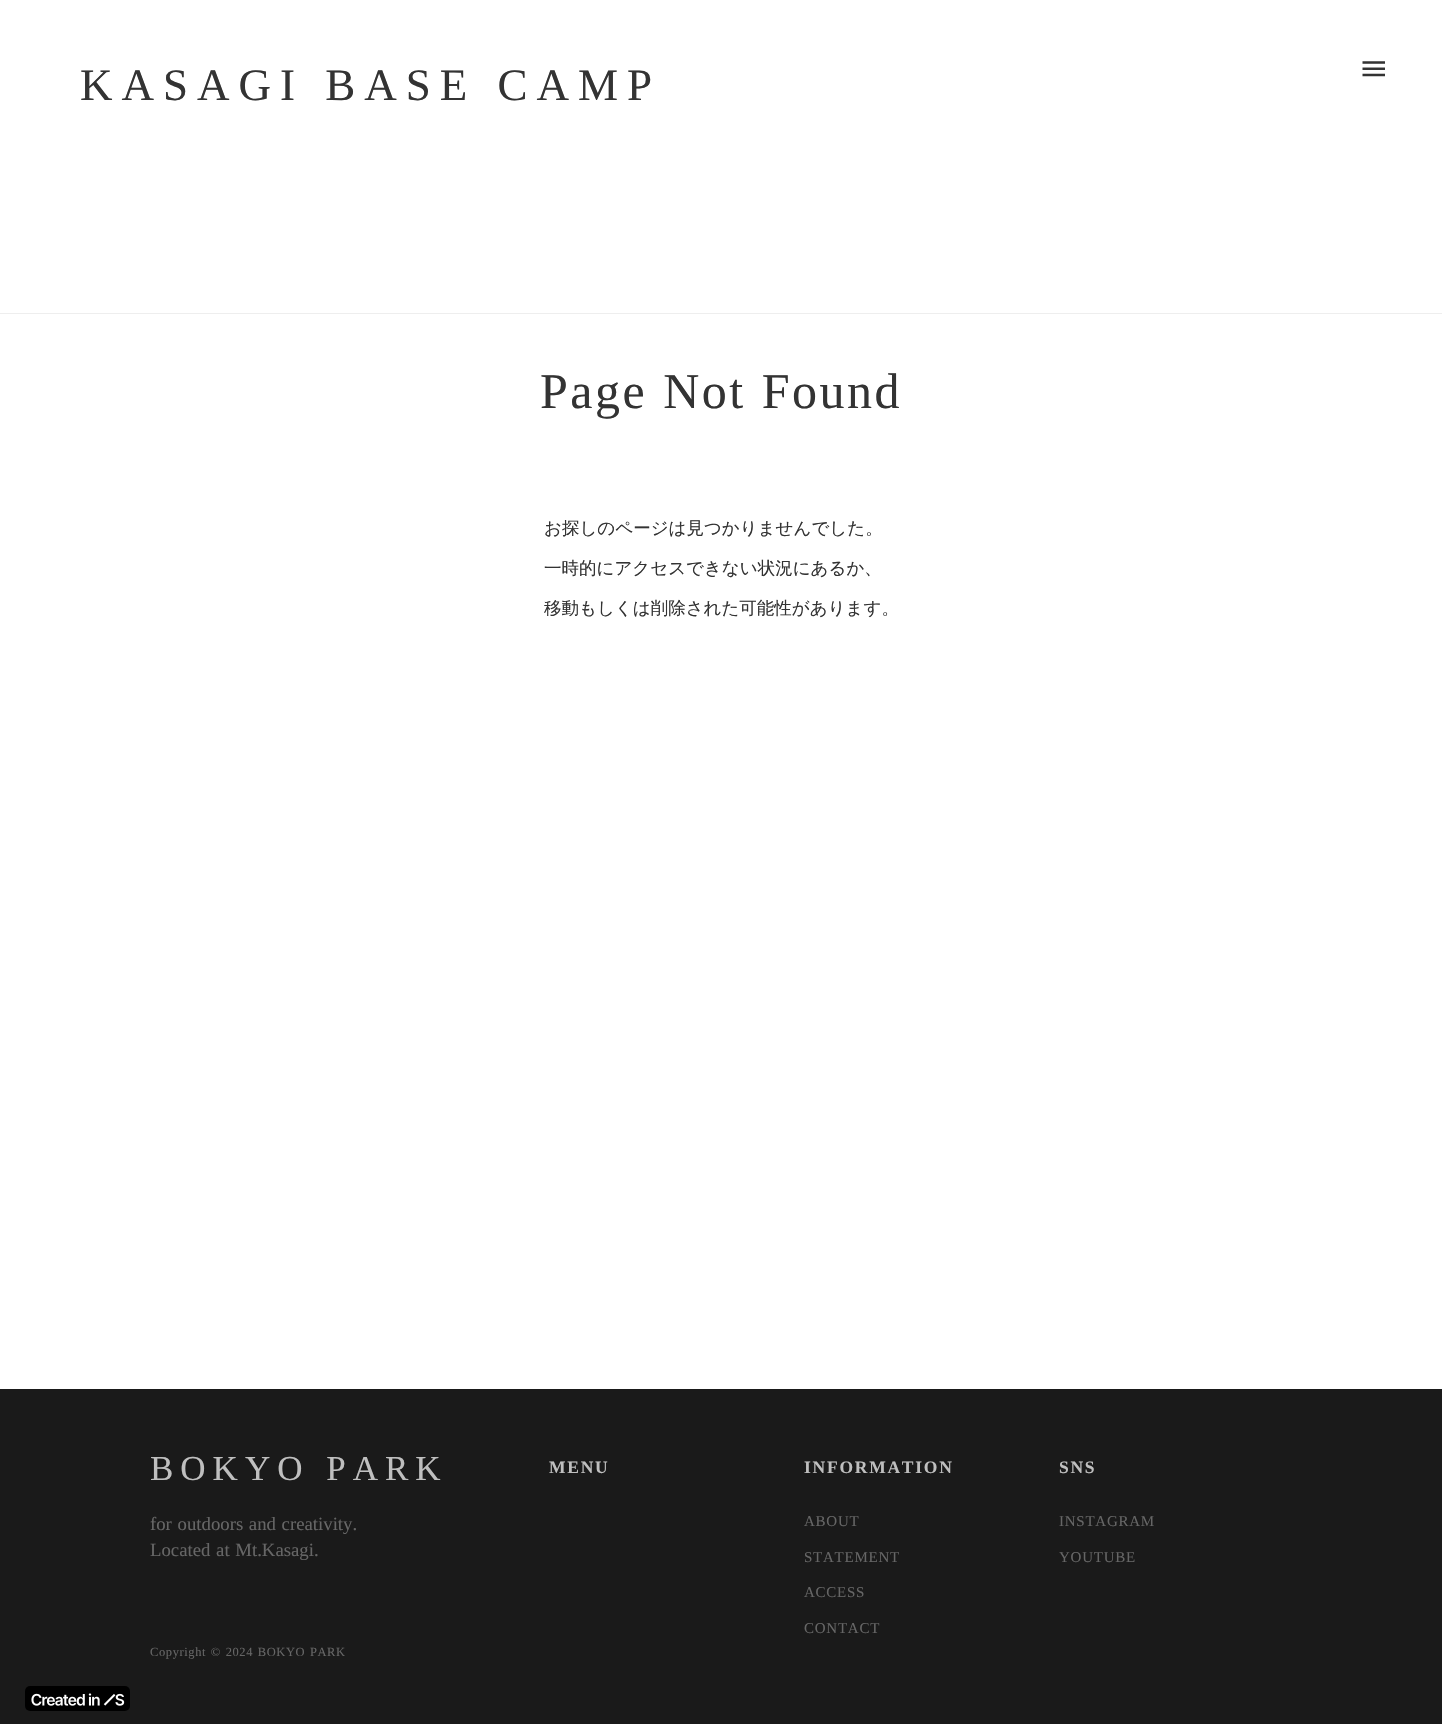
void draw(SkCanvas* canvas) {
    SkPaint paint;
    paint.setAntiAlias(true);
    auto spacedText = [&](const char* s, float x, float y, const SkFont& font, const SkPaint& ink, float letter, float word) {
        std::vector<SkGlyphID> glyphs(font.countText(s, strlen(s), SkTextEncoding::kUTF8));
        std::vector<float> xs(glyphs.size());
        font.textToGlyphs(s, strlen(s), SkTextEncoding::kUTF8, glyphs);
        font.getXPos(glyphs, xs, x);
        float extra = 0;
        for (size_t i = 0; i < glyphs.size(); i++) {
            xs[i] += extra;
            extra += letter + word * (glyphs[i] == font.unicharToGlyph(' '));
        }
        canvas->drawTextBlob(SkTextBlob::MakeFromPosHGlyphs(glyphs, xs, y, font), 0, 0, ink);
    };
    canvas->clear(0xFFFFFFFF);
    SkFont font1(fontMgr->matchFamilyStyle("Liberation Serif", SkFontStyle::Normal()), 45);
    font1.setSubpixel(true);
    paint.setColor(0xFF333333);
    spacedText("KASAGI BASE CAMP", 80, 100, font1, paint, 9, 1);
    canvas->drawImageRect(SkImages::DeferredFromEncodedData(SkData::MakeFromFileName("img1.png")), SkRect::MakeXYWH(1362, 61, 23, 16), SkSamplingOptions());
    paint.setColor(0xFFEEEEEE);
    canvas->drawRect(SkRect::MakeXYWH(0, 313, 1442, 1), paint);
    SkFont font2(fontMgr->matchFamilyStyle("Liberation Serif", SkFontStyle::Normal()), 50);
    font2.setSubpixel(true);
    paint.setColor(0xFF333333);
    spacedText("Page Not Found", 540, 408, font2, paint, 2.5f, 1);
    SkFont font3(fontMgr->matchFamilyStyle("WenQuanYi Zen Hei", SkFontStyle(500, SkFontStyle::kNormal_Width, SkFontStyle::kUpright_Slant)), 17.5f);
    font3.setSubpixel(true);
    canvas->drawString("お探しのページは見つかりませんでした。", 544, 534, font3, paint);
    canvas->drawString("一時的にアクセスできない状況にあるか、", 544, 574, font3, paint);
    canvas->drawString("移動もしくは削除された可能性があります。", 544, 614, font3, paint);
    paint.setColor(0xFF1A1A1A);
    canvas->drawRect(SkRect::MakeXYWH(0, 1389, 1442, 335), paint);
    SkFont font4(fontMgr->matchFamilyStyle("Liberation Serif", SkFontStyle::Normal()), 35);
    font4.setSubpixel(true);
    paint.setColor(0xFFBFBFBF);
    spacedText("BOKYO PARK", 150, 1480, font4, paint, 7, 1);
    SkFont font5(fontMgr->matchFamilyStyle("Liberation Serif", SkFontStyle::Normal()), 18.75f);
    font5.setSubpixel(true);
    paint.setColor(0xFF666666);
    spacedText("for outdoors and creativity.", 150, 1530, font5, paint, 0, 1);
    spacedText("Located at Mt.Kasagi.", 150, 1556, font5, paint, 0, 1);
    SkFont font6(fontMgr->matchFamilyStyle("Liberation Serif", SkFontStyle::Normal()), 12.5f);
    font6.setSubpixel(true);
    spacedText("Copyright © 2024 BOKYO PARK", 150, 1656, font6, paint, 0.6f, 1);
    SkFont font7(fontMgr->matchFamilyStyle("Liberation Serif", SkFontStyle::Bold()), 17.5f);
    font7.setSubpixel(true);
    paint.setColor(0xFFBFBFBF);
    spacedText("MENU", 549, 1473, font7, paint, 1.75f, 0);
    spacedText("INFORMATION", 804, 1473, font7, paint, 1.75f, 0);
    SkFont font8(fontMgr->matchFamilyStyle("Liberation Serif", SkFontStyle::Normal()), 15);
    font8.setSubpixel(true);
    paint.setColor(0xFF666666);
    spacedText("ABOUT", 804, 1526, font8, paint, 0.75f, 0);
    spacedText("STATEMENT", 804, 1562, font8, paint, 0.75f, 0);
    spacedText("ACCESS", 804, 1597, font8, paint, 0.75f, 0);
    spacedText("CONTACT", 804, 1633, font8, paint, 0.75f, 0);
    paint.setColor(0xFFBFBFBF);
    spacedText("SNS", 1059, 1473, font7, paint, 1.75f, 0);
    paint.setColor(0xFF666666);
    spacedText("INSTAGRAM", 1059, 1526, font8, paint, 0.75f, 0);
    spacedText("YOUTUBE", 1059, 1562, font8, paint, 0.75f, 0);
    paint.setColor(0xFF000000);
    canvas->drawRoundRect(SkRect::MakeXYWH(25, 1686, 105, 25), 5, 5, paint);
    canvas->drawImageRect(SkImages::DeferredFromEncodedData(SkData::MakeFromFileName("img2.png")), SkRect::MakeXYWH(31, 1693, 94, 13), SkSamplingOptions());
}
